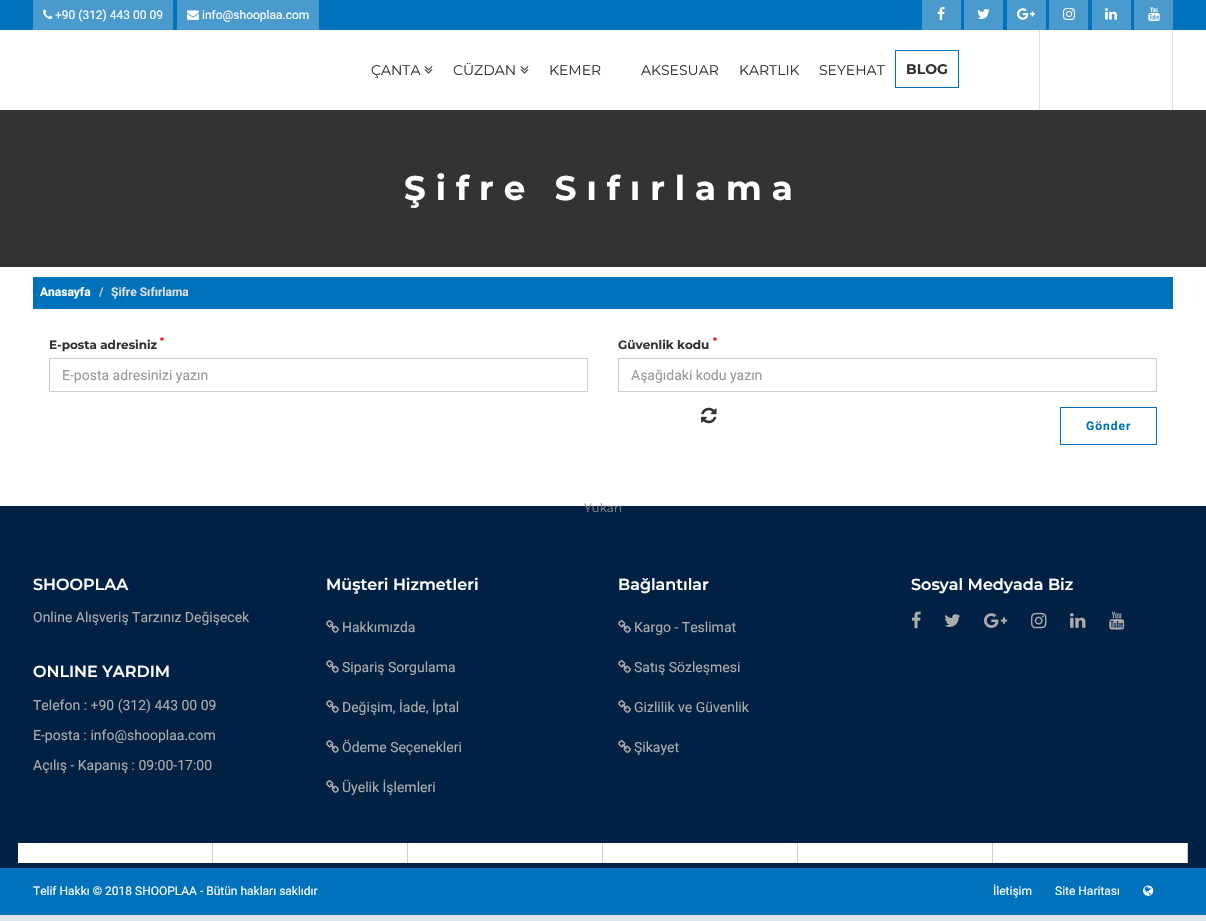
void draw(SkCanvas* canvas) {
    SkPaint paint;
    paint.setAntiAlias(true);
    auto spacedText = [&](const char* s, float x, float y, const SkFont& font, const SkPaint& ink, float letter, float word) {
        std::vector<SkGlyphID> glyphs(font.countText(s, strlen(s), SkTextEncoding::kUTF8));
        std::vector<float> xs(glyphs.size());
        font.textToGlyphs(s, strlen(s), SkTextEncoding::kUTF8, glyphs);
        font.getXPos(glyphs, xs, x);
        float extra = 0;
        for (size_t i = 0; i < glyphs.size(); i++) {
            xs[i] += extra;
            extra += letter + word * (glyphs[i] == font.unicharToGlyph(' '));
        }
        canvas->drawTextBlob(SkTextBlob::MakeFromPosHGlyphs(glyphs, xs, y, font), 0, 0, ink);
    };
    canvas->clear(0xFFDDE5EC);
    paint.setColor(0xFFFFFFFF);
    canvas->drawRect(SkRect::MakeXYWH(0, 267, 1206, 239), paint);
    canvas->drawRect(SkRect::MakeXYWH(0, 30, 1206, 80), paint);
    paint.setColor(0xFF0071BB);
    canvas->drawRect(SkRect::MakeXYWH(0, 0, 1206, 30), paint);
    paint.setColor(0xFF4B9ACE);
    canvas->drawRect(SkRect::MakeXYWH(33, 0, 140, 30), paint);
    canvas->drawImageRect(SkImages::DeferredFromEncodedData(SkData::MakeFromFileName("img1.png")), SkRect::MakeXYWH(43, 9, 10, 10), SkSamplingOptions());
    SkFont font1(fontMgr->matchFamilyStyle("Roboto", SkFontStyle::Normal()), 12);
    font1.setSubpixel(true);
    paint.setColor(0xFFFFFFFF);
    canvas->drawString("+90 (312) 443 00 09", 55, 19, font1, paint);
    paint.setColor(0xFF4B9ACE);
    canvas->drawRect(SkRect::MakeXYWH(177, 0, 142, 30), paint);
    canvas->drawImageRect(SkImages::DeferredFromEncodedData(SkData::MakeFromFileName("img2.png")), SkRect::MakeXYWH(187, 10, 12, 10), SkSamplingOptions());
    paint.setColor(0xFFFFFFFF);
    canvas->drawString("info@shooplaa.com", 202, 19, font1, paint);
    paint.setColor(0xFF4B9ACE);
    canvas->drawRect(SkRect::MakeXYWH(922, 0, 39, 30), paint);
    canvas->drawImageRect(SkImages::DeferredFromEncodedData(SkData::MakeFromFileName("img3.png")), SkRect::MakeXYWH(937, 7, 8, 13), SkSamplingOptions());
    canvas->drawRect(SkRect::MakeXYWH(964, 0, 39, 30), paint);
    canvas->drawImageRect(SkImages::DeferredFromEncodedData(SkData::MakeFromFileName("img4.png")), SkRect::MakeXYWH(977, 9, 13, 10), SkSamplingOptions());
    canvas->drawRect(SkRect::MakeXYWH(1007, 0, 39, 30), paint);
    canvas->drawImageRect(SkImages::DeferredFromEncodedData(SkData::MakeFromFileName("img5.png")), SkRect::MakeXYWH(1017, 8, 18, 12), SkSamplingOptions());
    canvas->drawRect(SkRect::MakeXYWH(1049, 0, 39, 30), paint);
    canvas->drawImageRect(SkImages::DeferredFromEncodedData(SkData::MakeFromFileName("img6.png")), SkRect::MakeXYWH(1063, 8, 12, 12), SkSamplingOptions());
    canvas->drawRect(SkRect::MakeXYWH(1092, 0, 39, 30), paint);
    canvas->drawImageRect(SkImages::DeferredFromEncodedData(SkData::MakeFromFileName("img7.png")), SkRect::MakeXYWH(1105, 8, 12, 12), SkSamplingOptions());
    canvas->drawRect(SkRect::MakeXYWH(1134, 0, 39, 30), paint);
    canvas->drawImageRect(SkImages::DeferredFromEncodedData(SkData::MakeFromFileName("img8.png")), SkRect::MakeXYWH(1148, 7, 12, 14), SkSamplingOptions());
    SkFont font2(fontMgr->matchFamilyStyle("Montserrat", SkFontStyle::Normal()), 14);
    font2.setSubpixel(true);
    paint.setColor(0xFF333333);
    canvas->drawString("ÇANTA", 371, 75, font2, paint);
    canvas->drawImageRect(SkImages::DeferredFromEncodedData(SkData::MakeFromFileName("img9.png")), SkRect::MakeXYWH(424, 66, 9, 8), SkSamplingOptions());
    canvas->drawString("CÜZDAN", 453, 75, font2, paint);
    canvas->drawImageRect(SkImages::DeferredFromEncodedData(SkData::MakeFromFileName("img9.png")), SkRect::MakeXYWH(520, 66, 9, 8), SkSamplingOptions());
    canvas->drawString("KEMER", 549, 75, font2, paint);
    canvas->drawString("AKSESUAR", 641, 75, font2, paint);
    canvas->drawString("KARTLIK", 739, 75, font2, paint);
    canvas->drawString("SEYEHAT", 819, 75, font2, paint);
    paint.setStyle(SkPaint::kStroke_Style);
    paint.setStrokeWidth(1);
    paint.setColor(0xFF0071BB);
    canvas->drawRect(SkRect::MakeXYWH(895.5f, 50.5f, 63, 37), paint);
    SkFont font3(fontMgr->matchFamilyStyle("Montserrat", SkFontStyle::Bold()), 14);
    font3.setSubpixel(true);
    paint.setStyle(SkPaint::kFill_Style);
    paint.setColor(0xFF333333);
    canvas->drawString("BLOG", 906, 74, font3, paint);
    paint.setColor(0xFFE1E1E1);
    canvas->drawRect(SkRect::MakeXYWH(1172, 30, 1, 80), paint);
    canvas->drawRect(SkRect::MakeXYWH(1039, 30, 1, 80), paint);
    paint.setColor(0xFF333333);
    canvas->drawRect(SkRect::MakeXYWH(0, 110, 1206, 157), paint);
    SkFont font4(fontMgr->matchFamilyStyle("Montserrat", SkFontStyle::Bold()), 34);
    font4.setSubpixel(true);
    paint.setColor(0xFFFFFFFF);
    spacedText("Şifre Sıfırlama", 404, 200, font4, paint, 10, 0);
    paint.setColor(0xFF0071BB);
    canvas->drawRect(SkRect::MakeXYWH(33, 277, 1140, 32), paint);
    SkFont font5(fontMgr->matchFamilyStyle("Roboto", SkFontStyle::Bold()), 12);
    font5.setSubpixel(true);
    paint.setColor(0xFFFFFFFF);
    canvas->drawString("Anasayfa", 40, 296, font5, paint);
    paint.setColor(0xFFCCCCCC);
    canvas->drawString("/", 99, 296, font5, paint);
    paint.setColor(0xFFDEDEDE);
    canvas->drawString("Şifre Sıfırlama", 111, 296, font5, paint);
    SkFont font6(fontMgr->matchFamilyStyle("Montserrat", SkFontStyle::Bold()), 12);
    font6.setSubpixel(true);
    paint.setColor(0xFF333333);
    canvas->drawString("E-posta adresiniz", 49, 349, font6, paint);
    SkFont font7(fontMgr->matchFamilyStyle("Montserrat", SkFontStyle::Bold()), 9);
    font7.setSubpixel(true);
    paint.setColor(0xFFFF0000);
    canvas->drawString("*", 160, 344, font7, paint);
    paint.setStyle(SkPaint::kStroke_Style);
    paint.setColor(0xFFCCCCCC);
    canvas->drawRect(SkRect::MakeXYWH(49.5f, 358.5f, 538, 33), paint);
    SkFont font8(fontMgr->matchFamilyStyle("Roboto", SkFontStyle::Normal()), 14);
    font8.setSubpixel(true);
    paint.setStyle(SkPaint::kFill_Style);
    paint.setColor(0xFF999999);
    canvas->drawString("E-posta adresinizi yazın", 62, 380, font8, paint);
    paint.setColor(0xFF333333);
    canvas->drawString("Güvenlik kodu", 618, 349, font6, paint);
    paint.setColor(0xFFFF0000);
    canvas->drawString("*", 713, 344, font7, paint);
    paint.setStyle(SkPaint::kStroke_Style);
    paint.setColor(0xFFCCCCCC);
    canvas->drawRect(SkRect::MakeXYWH(618.5f, 358.5f, 538, 33), paint);
    paint.setStyle(SkPaint::kFill_Style);
    paint.setColor(0xFF999999);
    canvas->drawString("Aşağıdaki kodu yazın", 631, 380, font8, paint);
    canvas->drawImageRect(SkImages::DeferredFromEncodedData(SkData::MakeFromFileName("img10.png")), SkRect::MakeXYWH(701, 407, 16, 17), SkSamplingOptions());
    paint.setStyle(SkPaint::kStroke_Style);
    paint.setColor(0xFF0071BB);
    canvas->drawRect(SkRect::MakeXYWH(1060.5f, 407.5f, 96, 37), paint);
    paint.setStyle(SkPaint::kFill_Style);
    spacedText("Gönder", 1086, 430, font5, paint, 1, 0);
    paint.setColor(0xFF002144);
    canvas->drawRect(SkRect::MakeXYWH(0, 506, 1206, 362), paint);
    SkFont font9(fontMgr->matchFamilyStyle("Montserrat", SkFontStyle::Normal()), 12);
    font9.setSubpixel(true);
    paint.setColor(0xFF898989);
    canvas->drawString("Yukarı", 584, 512, font9, paint);
    SkFont font10(fontMgr->matchFamilyStyle("Montserrat", SkFontStyle(600, SkFontStyle::kNormal_Width, SkFontStyle::kUpright_Slant)), 16);
    font10.setSubpixel(true);
    paint.setColor(0xFFFFFFFF);
    canvas->drawString("SHOOPLAA", 33, 590, font10, paint);
    paint.setColor(0xFFACACAC);
    canvas->drawString("Online Alışveriş Tarzınız Değişecek", 33, 622, font8, paint);
    paint.setColor(0xFFFFFFFF);
    canvas->drawString("ONLINE YARDIM", 33, 677, font10, paint);
    paint.setColor(0xFFACACAC);
    canvas->drawString("Telefon : +90 (312) 443 00 09", 33, 710, font8, paint);
    canvas->drawString("E-posta : info@shooplaa.com", 33, 740, font8, paint);
    canvas->drawString("Açılış - Kapanış : 09:00-17:00", 33, 770, font8, paint);
    paint.setColor(0xFFFFFFFF);
    canvas->drawString("Müşteri Hizmetleri", 326, 590, font10, paint);
    canvas->drawImageRect(SkImages::DeferredFromEncodedData(SkData::MakeFromFileName("img11.png")), SkRect::MakeXYWH(326, 620, 13, 13), SkSamplingOptions());
    paint.setColor(0xFFACACAC);
    canvas->drawString("Hakkımızda", 342, 632, font8, paint);
    canvas->drawImageRect(SkImages::DeferredFromEncodedData(SkData::MakeFromFileName("img11.png")), SkRect::MakeXYWH(326, 660, 13, 13), SkSamplingOptions());
    canvas->drawString("Sipariş Sorgulama", 342, 672, font8, paint);
    canvas->drawImageRect(SkImages::DeferredFromEncodedData(SkData::MakeFromFileName("img11.png")), SkRect::MakeXYWH(326, 700, 13, 13), SkSamplingOptions());
    canvas->drawString("Değişim, İade, İptal", 342, 712, font8, paint);
    canvas->drawImageRect(SkImages::DeferredFromEncodedData(SkData::MakeFromFileName("img11.png")), SkRect::MakeXYWH(326, 740, 13, 13), SkSamplingOptions());
    canvas->drawString("Ödeme Seçenekleri", 342, 752, font8, paint);
    canvas->drawImageRect(SkImages::DeferredFromEncodedData(SkData::MakeFromFileName("img11.png")), SkRect::MakeXYWH(326, 780, 13, 13), SkSamplingOptions());
    canvas->drawString("Üyelik İşlemleri", 342, 792, font8, paint);
    paint.setColor(0xFFFFFFFF);
    canvas->drawString("Bağlantılar", 618, 590, font10, paint);
    canvas->drawImageRect(SkImages::DeferredFromEncodedData(SkData::MakeFromFileName("img11.png")), SkRect::MakeXYWH(618, 620, 13, 13), SkSamplingOptions());
    paint.setColor(0xFFACACAC);
    canvas->drawString("Kargo - Teslimat", 634, 632, font8, paint);
    canvas->drawImageRect(SkImages::DeferredFromEncodedData(SkData::MakeFromFileName("img11.png")), SkRect::MakeXYWH(618, 660, 13, 13), SkSamplingOptions());
    canvas->drawString("Satış Sözleşmesi", 634, 672, font8, paint);
    canvas->drawImageRect(SkImages::DeferredFromEncodedData(SkData::MakeFromFileName("img11.png")), SkRect::MakeXYWH(618, 700, 13, 13), SkSamplingOptions());
    canvas->drawString("Gizlilik ve Güvenlik", 634, 712, font8, paint);
    canvas->drawImageRect(SkImages::DeferredFromEncodedData(SkData::MakeFromFileName("img11.png")), SkRect::MakeXYWH(618, 740, 13, 13), SkSamplingOptions());
    canvas->drawString("Şikayet", 634, 752, font8, paint);
    paint.setColor(0xFFFFFFFF);
    canvas->drawString("Sosyal Medyada Biz", 911, 590, font10, paint);
    canvas->drawImageRect(SkImages::DeferredFromEncodedData(SkData::MakeFromFileName("img12.png")), SkRect::MakeXYWH(911, 611, 10, 18), SkSamplingOptions());
    canvas->drawImageRect(SkImages::DeferredFromEncodedData(SkData::MakeFromFileName("img13.png")), SkRect::MakeXYWH(944, 614, 17, 13), SkSamplingOptions());
    canvas->drawImageRect(SkImages::DeferredFromEncodedData(SkData::MakeFromFileName("img14.png")), SkRect::MakeXYWH(984, 613, 24, 15), SkSamplingOptions());
    canvas->drawImageRect(SkImages::DeferredFromEncodedData(SkData::MakeFromFileName("img15.png")), SkRect::MakeXYWH(1031, 612, 16, 17), SkSamplingOptions());
    canvas->drawImageRect(SkImages::DeferredFromEncodedData(SkData::MakeFromFileName("img16.png")), SkRect::MakeXYWH(1070, 613, 16, 15), SkSamplingOptions());
    canvas->drawImageRect(SkImages::DeferredFromEncodedData(SkData::MakeFromFileName("img17.png")), SkRect::MakeXYWH(1109, 611, 16, 19), SkSamplingOptions());
    canvas->drawRect(SkRect::MakeXYWH(18, 843, 1169, 20), paint);
    paint.setColor(0xFFCCCCCC);
    canvas->drawRect(SkRect::MakeXYWH(212, 843, 1, 20), paint);
    canvas->drawRect(SkRect::MakeXYWH(407, 843, 1, 20), paint);
    canvas->drawRect(SkRect::MakeXYWH(602, 843, 1, 20), paint);
    canvas->drawRect(SkRect::MakeXYWH(797, 843, 1, 20), paint);
    canvas->drawRect(SkRect::MakeXYWH(992, 843, 1, 20), paint);
    canvas->drawRect(SkRect::MakeXYWH(1187, 843, 1, 20), paint);
    paint.setColor(0xFF0071BB);
    canvas->drawRect(SkRect::MakeXYWH(0, 868, 1206, 47), paint);
    paint.setColor(0xFFFFFFFF);
    canvas->drawString("Telif Hakkı © 2018 SHOOPLAA - Bütün hakları saklıdır", 33, 895, font1, paint);
    canvas->drawString("İletişim", 993, 895, font1, paint);
    canvas->drawString("Site Haritası", 1055, 895, font1, paint);
    canvas->drawImageRect(SkImages::DeferredFromEncodedData(SkData::MakeFromFileName("img18.png")), SkRect::MakeXYWH(1143, 885, 11, 11), SkSamplingOptions());
}
